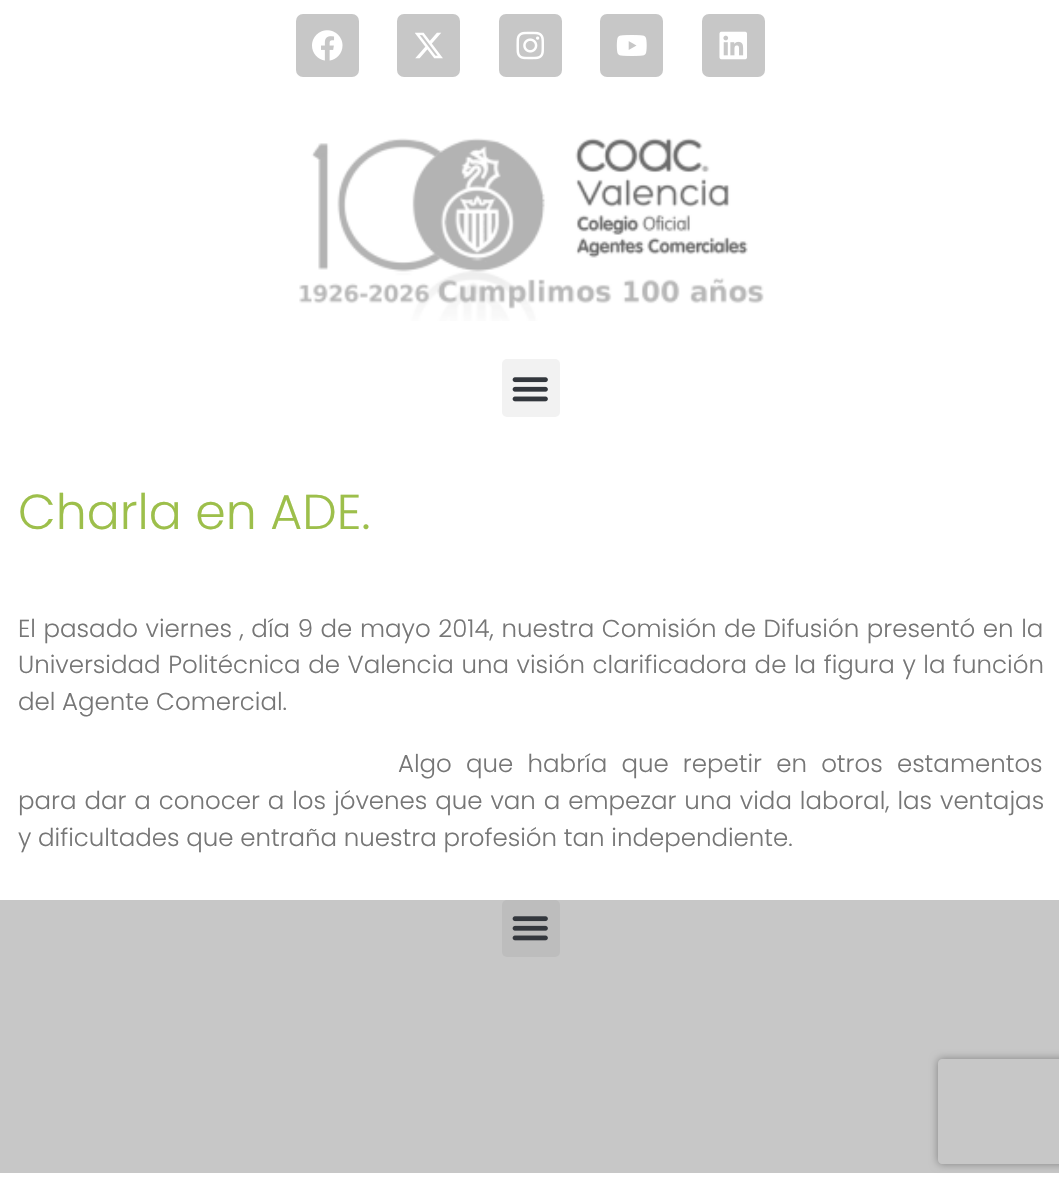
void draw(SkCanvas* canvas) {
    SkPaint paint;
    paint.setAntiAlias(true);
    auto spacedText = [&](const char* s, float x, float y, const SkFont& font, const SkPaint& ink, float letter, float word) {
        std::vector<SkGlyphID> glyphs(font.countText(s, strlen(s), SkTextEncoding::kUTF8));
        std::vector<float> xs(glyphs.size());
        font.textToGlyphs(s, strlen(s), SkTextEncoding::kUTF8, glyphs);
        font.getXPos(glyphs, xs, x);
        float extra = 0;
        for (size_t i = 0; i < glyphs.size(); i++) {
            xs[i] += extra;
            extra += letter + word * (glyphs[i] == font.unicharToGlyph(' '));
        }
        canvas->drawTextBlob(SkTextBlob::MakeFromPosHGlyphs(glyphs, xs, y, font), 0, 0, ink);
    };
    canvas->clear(0xFFFFFFFF);
    paint.setColor(0xFFC7C7C7);
    canvas->drawRoundRect(SkRect::MakeXYWH(296, 14, 63, 63), 7, 7, paint);
    canvas->drawImageRect(SkImages::DeferredFromEncodedData(SkData::MakeFromFileName("img1.png")), SkRect::MakeXYWH(312, 30, 31, 31), SkSamplingOptions());
    canvas->drawRoundRect(SkRect::MakeXYWH(397, 14, 63, 63), 7, 7, paint);
    canvas->drawImageRect(SkImages::DeferredFromEncodedData(SkData::MakeFromFileName("img2.png")), SkRect::MakeXYWH(415, 32, 28, 27), SkSamplingOptions());
    canvas->drawRoundRect(SkRect::MakeXYWH(499, 14, 63, 63), 7, 7, paint);
    canvas->drawImageRect(SkImages::DeferredFromEncodedData(SkData::MakeFromFileName("img3.png")), SkRect::MakeXYWH(516, 31, 28, 29), SkSamplingOptions());
    canvas->drawRoundRect(SkRect::MakeXYWH(600, 14, 63, 63), 7, 7, paint);
    canvas->drawImageRect(SkImages::DeferredFromEncodedData(SkData::MakeFromFileName("img4.png")), SkRect::MakeXYWH(616, 35, 31, 21), SkSamplingOptions());
    canvas->drawRoundRect(SkRect::MakeXYWH(702, 14, 63, 63), 7, 7, paint);
    canvas->drawImageRect(SkImages::DeferredFromEncodedData(SkData::MakeFromFileName("img5.png")), SkRect::MakeXYWH(719, 31, 28, 29), SkSamplingOptions());
    canvas->drawImageRect(SkImages::DeferredFromEncodedData(SkData::MakeFromFileName("img6.png")), SkRect::MakeXYWH(299, 138, 465, 183), SkSamplingOptions());
    paint.setColor(0xFFF2F2F2);
    canvas->drawRoundRect(SkRect::MakeXYWH(502, 359, 58, 58), 5, 5, paint);
    canvas->drawImageRect(SkImages::DeferredFromEncodedData(SkData::MakeFromFileName("img7.png")), SkRect::MakeXYWH(512, 377, 36, 25), SkSamplingOptions());
    SkFont font1(fontMgr->matchFamilyStyle("Poppins", SkFontStyle(300, SkFontStyle::kNormal_Width, SkFontStyle::kUpright_Slant)), 49);
    font1.setSubpixel(true);
    paint.setColor(0xFF9DBF4B);
    canvas->drawString("Charla en ADE.", 18, 529, font1, paint);
    SkFont font2(fontMgr->matchFamilyStyle("Poppins", SkFontStyle(300, SkFontStyle::kNormal_Width, SkFontStyle::kUpright_Slant)), 24.5f);
    font2.setSubpixel(true);
    paint.setColor(0xFF767676);
    spacedText("El pasado viernes , día 9 de mayo 2014, nuestra Comisión de Difusión presentó en la", 18, 637, font2, paint, 0, 0.9f);
    spacedText("Universidad Politécnica de Valencia una visión clarificadora de la figura y la función", 18, 673, font2, paint, 0, 0.9f);
    canvas->drawString("del Agente Comercial.", 18, 710, font2, paint);
    spacedText("Algo que habría que repetir en otros estamentos", 398, 772, font2, paint, 0, 7.5f);
    spacedText("para dar a conocer a los jóvenes que van a empezar una vida laboral, las ventajas", 18, 809, font2, paint, 0, 1.2f);
    canvas->drawString("y dificultades que entraña nuestra profesión tan independiente.", 18, 846, font2, paint);
    paint.setColor(0xFFC7C7C7);
    canvas->drawRect(SkRect::MakeXYWH(0, 900, 1059, 273), paint);
    paint.setColor(0xFFBDBDBD);
    canvas->drawRoundRect(SkRect::MakeXYWH(502, 900, 58, 57), 5, 5, paint);
    canvas->drawImageRect(SkImages::DeferredFromEncodedData(SkData::MakeFromFileName("img8.png")), SkRect::MakeXYWH(512, 916, 36, 25), SkSamplingOptions());
    canvas->save();
    canvas->clipPath(SkPathBuilder(SkPathFillType::kEvenOdd).moveTo(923, 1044).lineTo(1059, 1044).lineTo(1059, 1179).lineTo(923, 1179).close().moveTo(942, 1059).lineTo(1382, 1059).cubicTo(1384, 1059, 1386, 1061, 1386, 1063).lineTo(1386, 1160).cubicTo(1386, 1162, 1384, 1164, 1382, 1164).lineTo(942, 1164).cubicTo(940, 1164, 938, 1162, 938, 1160).lineTo(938, 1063).cubicTo(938, 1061, 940, 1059, 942, 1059).close().detach(), true);
    paint.setColor(0xFF808080);
    paint.setMaskFilter(SkMaskFilter::MakeBlur(kNormal_SkBlurStyle, 4.5f));
    canvas->drawRoundRect(SkRect::MakeXYWH(938, 1059, 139, 105), 4, 4, paint);
    paint.setMaskFilter(nullptr);
    canvas->restore();
}
